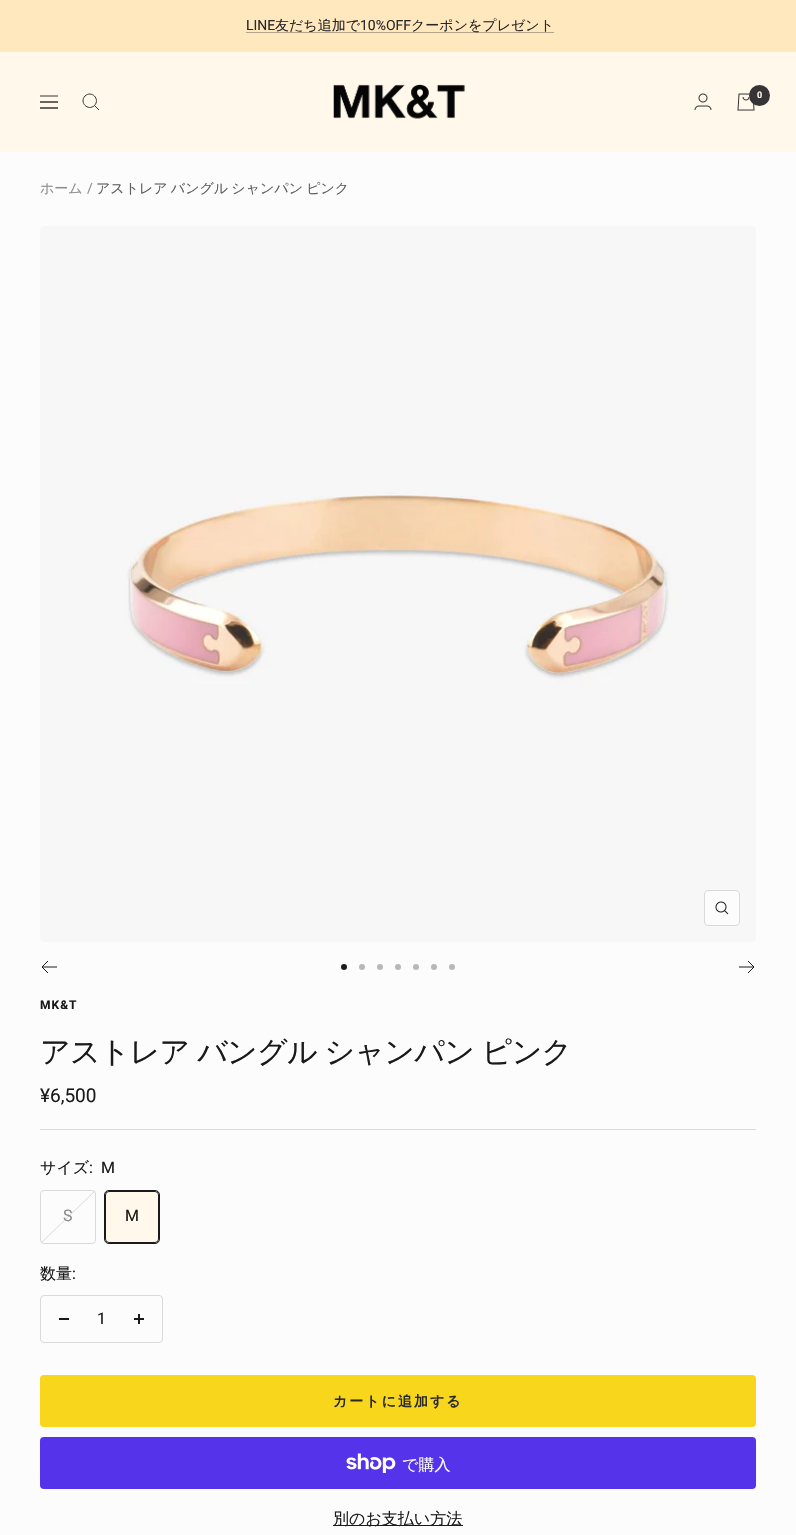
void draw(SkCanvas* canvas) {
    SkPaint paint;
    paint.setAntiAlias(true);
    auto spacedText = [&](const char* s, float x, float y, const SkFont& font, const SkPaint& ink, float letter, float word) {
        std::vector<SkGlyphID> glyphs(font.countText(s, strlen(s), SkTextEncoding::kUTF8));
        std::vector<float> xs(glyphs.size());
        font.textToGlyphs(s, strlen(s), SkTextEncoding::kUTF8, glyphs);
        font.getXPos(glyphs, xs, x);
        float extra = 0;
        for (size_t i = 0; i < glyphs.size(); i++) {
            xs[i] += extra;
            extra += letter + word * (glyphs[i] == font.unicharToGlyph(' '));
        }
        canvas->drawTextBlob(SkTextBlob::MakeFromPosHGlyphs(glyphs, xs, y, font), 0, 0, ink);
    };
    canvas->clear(0xFFFCFCFC);
    paint.setColor(0xFFFFE8BE);
    canvas->drawRect(SkRect::MakeXYWH(0, 0, 796, 52), paint);
    SkFont font1(fontMgr->matchFamilyStyle("Roboto", SkFontStyle::Normal()), 14);
    font1.setSubpixel(true);
    paint.setColor(0xFF282828);
    canvas->drawString("LINE", 246, 30, font1, paint);
    SkFont font2(fontMgr->matchFamilyStyle("WenQuanYi Zen Hei", SkFontStyle(500, SkFontStyle::kNormal_Width, SkFontStyle::kUpright_Slant)), 14);
    font2.setSubpixel(true);
    canvas->drawString("友だち追加で", 275, 30, font2, paint);
    canvas->drawString("10%OFF", 360, 30, font1, paint);
    paint.setColor(0xFFB4A58A);
    canvas->drawRect(SkRect::MakeXYWH(246, 32, 308, 1), paint);
    paint.setColor(0xFF282828);
    canvas->drawString("クーポンをプレゼント", 411, 30, font2, paint);
    paint.setColor(0xFFFFF8EB);
    canvas->drawRect(SkRect::MakeXYWH(0, 52, 796, 100), paint);
    paint.setStyle(SkPaint::kStroke_Style);
    paint.setStrokeWidth(1);
    paint.setColor(0xFF353535);
    canvas->drawPath(SkPathBuilder().moveTo(40, 96).lineTo(58, 96).moveTo(40, 108).lineTo(58, 108).close().moveTo(40, 102).lineTo(58, 102).close().moveTo(94.5f, 105.5f).cubicTo(100.5f, 99, 91.5f, 90, 85, 96).cubicTo(79, 102.5f, 88, 111.5f, 94.5f, 105.5f).close().moveTo(94.5f, 105.5f).lineTo(99, 110).detach(), paint);
    canvas->drawImageRect(SkImages::DeferredFromEncodedData(SkData::MakeFromFileName("img1.png")), SkRect::MakeXYWH(333, 84, 132, 35), SkSamplingOptions());
    canvas->drawImageRect(SkImages::DeferredFromEncodedData(SkData::MakeFromFileName("img2.png")), SkRect::MakeXYWH(694, 93, 18, 17), SkSamplingOptions());
    canvas->drawImageRect(SkImages::DeferredFromEncodedData(SkData::MakeFromFileName("img3.png")), SkRect::MakeXYWH(737, 93, 18, 18), SkSamplingOptions());
    paint.setStyle(SkPaint::kFill_Style);
    canvas->drawCircle(759.5f, 95.5f, 10.5f, paint);
    SkFont font3(fontMgr->matchFamilyStyle("Roboto", SkFontStyle::Bold()), 9);
    font3.setSubpixel(true);
    paint.setColor(0xFFFFF8EB);
    canvas->drawString("0", 757, 98, font3, paint);
    paint.setColor(0xFF8D8D8D);
    canvas->drawString("ホーム", 40, 193, font2, paint);
    canvas->drawString("/", 87, 193, font1, paint);
    paint.setColor(0xFF5E5E5E);
    spacedText("アストレア バングル シャンパン ピンク", 96, 193, font2, paint, 0, -1);
    canvas->drawImageRect(SkImages::DeferredFromEncodedData(SkData::MakeFromFileName("img4.png")), SkRect::MakeXYWH(40, 226, 716, 716), SkSamplingOptions());
    paint.setColor(0xFFFCFCFC);
    canvas->drawRoundRect(SkRect::MakeXYWH(704.5f, 890.5f, 35, 35), 3.5f, 3.5f, paint);
    paint.setStyle(SkPaint::kStroke_Style);
    paint.setColor(0xFFDADADA);
    canvas->drawRoundRect(SkRect::MakeXYWH(704.5f, 890.5f, 35, 35), 3.5f, 3.5f, paint);
    canvas->drawImageRect(SkImages::DeferredFromEncodedData(SkData::MakeFromFileName("img5.png")), SkRect::MakeXYWH(715, 901, 14, 14), SkSamplingOptions());
    paint.setColor(0xFF1A1A1A);
    canvas->drawPath(SkPathBuilder().moveTo(57, 967).lineTo(42, 967).moveTo(48, 961).lineTo(42, 967).lineTo(48, 973).detach(), paint);
    paint.setStyle(SkPaint::kFill_Style);
    canvas->drawCircle(344, 967, 3, paint);
    paint.setColor(0xFFB8B8B8);
    canvas->drawCircle(362, 967, 3, paint);
    canvas->drawCircle(380, 967, 3, paint);
    canvas->drawCircle(398, 967, 3, paint);
    canvas->drawCircle(416, 967, 3, paint);
    canvas->drawCircle(434, 967, 3, paint);
    canvas->drawCircle(452, 967, 3, paint);
    paint.setStyle(SkPaint::kStroke_Style);
    paint.setColor(0xFF1A1A1A);
    canvas->drawPath(SkPathBuilder().moveTo(739, 967).lineTo(754, 967).moveTo(748, 961).lineTo(754, 967).lineTo(748, 973).detach(), paint);
    paint.setStyle(SkPaint::kFill_Style);
    paint.setColor(0xFFDADADA);
    canvas->drawRect(SkRect::MakeXYWH(40, 1129, 716, 1), paint);
    SkFont font4(fontMgr->matchFamilyStyle("Roboto", SkFontStyle::Bold()), 12);
    font4.setSubpixel(true);
    paint.setColor(0xFF1A1A1A);
    spacedText("MK&T", 40, 1009, font4, paint, 1, 0);
    SkFont font5(fontMgr->matchFamilyStyle("WenQuanYi Zen Hei", SkFontStyle(500, SkFontStyle::kNormal_Width, SkFontStyle::kUpright_Slant)), 30);
    font5.setSubpixel(true);
    spacedText("アストレア バングル シャンパン ピンク", 40, 1062, font5, paint, -0.8f, -0.5f);
    SkFont font6(fontMgr->matchFamilyStyle("Roboto", SkFontStyle::Normal()), 19);
    font6.setSubpixel(true);
    canvas->drawString("¥6,500", 40, 1102, font6, paint);
    SkFont font7(fontMgr->matchFamilyStyle("WenQuanYi Zen Hei", SkFontStyle(500, SkFontStyle::kNormal_Width, SkFontStyle::kUpright_Slant)), 16);
    font7.setSubpixel(true);
    canvas->drawString("サイズ", 40, 1173, font7, paint);
    SkFont font8(fontMgr->matchFamilyStyle("Roboto", SkFontStyle::Normal()), 16);
    font8.setSubpixel(true);
    canvas->drawString(":", 89, 1173, font8, paint);
    canvas->drawString("M", 101, 1173, font8, paint);
    canvas->save();
    canvas->clipPath(SkPathBuilder().moveTo(44, 1190).lineTo(92, 1190).cubicTo(94, 1190, 96, 1192, 96, 1194).lineTo(96, 1240).cubicTo(96, 1242, 94, 1244, 92, 1244).lineTo(44, 1244).cubicTo(42, 1244, 40, 1242, 40, 1240).lineTo(40, 1194).cubicTo(40, 1192, 42, 1190, 44, 1190).close().detach(), true);
    {
        const SkColor colors[] = {0xFFFCFCFC, 0xFFDADADA, 0xFFFCFCFC};
        const float stops[] = {0.49f, 0.5f, 0.51f};
        const SkPoint ends[] = {{42, 1190}, {94, 1244}};
        paint.setShader(SkGradientShader::MakeLinear(ends, colors, stops, 3, SkTileMode::kClamp));
        paint.setAlpha(255);
    }
    canvas->drawRect(SkRect::MakeXYWH(41, 1191, 54, 52), paint);
    canvas->restore();
    paint.setStyle(SkPaint::kStroke_Style);
    paint.setShader(nullptr);
    paint.setColor(0xFFDADADA);
    canvas->drawRoundRect(SkRect::MakeXYWH(40.5f, 1190.5f, 55, 53), 3.5f, 3.5f, paint);
    paint.setStyle(SkPaint::kFill_Style);
    paint.setColor(0xFF8D8D8D);
    canvas->drawString("S", 63, 1221, font8, paint);
    paint.setColor(0xFFFFF8EB);
    canvas->drawRoundRect(SkRect::MakeXYWH(104.5f, 1190.5f, 55, 53), 3.5f, 3.5f, paint);
    paint.setStyle(SkPaint::kStroke_Style);
    paint.setColor(0xFFDADADA);
    canvas->drawRoundRect(SkRect::MakeXYWH(104.5f, 1190.5f, 55, 53), 3.5f, 3.5f, paint);
    paint.setColor(0xFF1A1A1A);
    canvas->drawRoundRect(SkRect::MakeXYWH(104.5f, 1190.5f, 55, 53), 4.5f, 4.5f, paint);
    canvas->drawRoundRect(SkRect::MakeXYWH(105.5f, 1191.5f, 53, 51), 3.5f, 3.5f, paint);
    paint.setStyle(SkPaint::kFill_Style);
    canvas->drawString("M", 125, 1221, font8, paint);
    canvas->drawString("数量", 40, 1279, font7, paint);
    canvas->drawString(":", 72, 1279, font8, paint);
    paint.setStyle(SkPaint::kStroke_Style);
    paint.setColor(0xFFDADADA);
    canvas->drawRoundRect(SkRect::MakeXYWH(40.5f, 1295.5f, 122, 47), 3.5f, 3.5f, paint);
    paint.setStyle(SkPaint::kFill_Style);
    paint.setColor(0xFF1A1A1A);
    canvas->drawRect(SkRect::MakeXYWH(59, 1318, 10, 2), paint);
    canvas->drawString("1", 97, 1324, font8, paint);
    canvas->drawImageRect(SkImages::DeferredFromEncodedData(SkData::MakeFromFileName("img6.png")), SkRect::MakeXYWH(134, 1314, 10, 10), SkSamplingOptions());
    paint.setColor(0xFFF7D61C);
    canvas->drawRoundRect(SkRect::MakeXYWH(40, 1375, 716, 52), 4, 4, paint);
    SkFont font9(fontMgr->matchFamilyStyle("WenQuanYi Zen Hei", SkFontStyle::Bold()), 14);
    font9.setSubpixel(true);
    paint.setColor(0xFF282828);
    spacedText("カートに追加する", 333, 1406, font9, paint, 2, 0);
    paint.setColor(0xFF5433EB);
    canvas->drawRoundRect(SkRect::MakeXYWH(40, 1437, 716, 52), 4, 4, paint);
    canvas->drawImageRect(SkImages::DeferredFromEncodedData(SkData::MakeFromFileName("img7.png")), SkRect::MakeXYWH(346, 1453, 50, 20), SkSamplingOptions());
    paint.setColor(0xFFFFFFFF);
    canvas->drawString("で購入", 402, 1470, font7, paint);
    paint.setColor(0xFF1A1A1A);
    canvas->drawRect(SkRect::MakeXYWH(333, 1525, 130, 1), paint);
    canvas->drawString("別のお支払い方法", 333, 1524, font7, paint);
}
